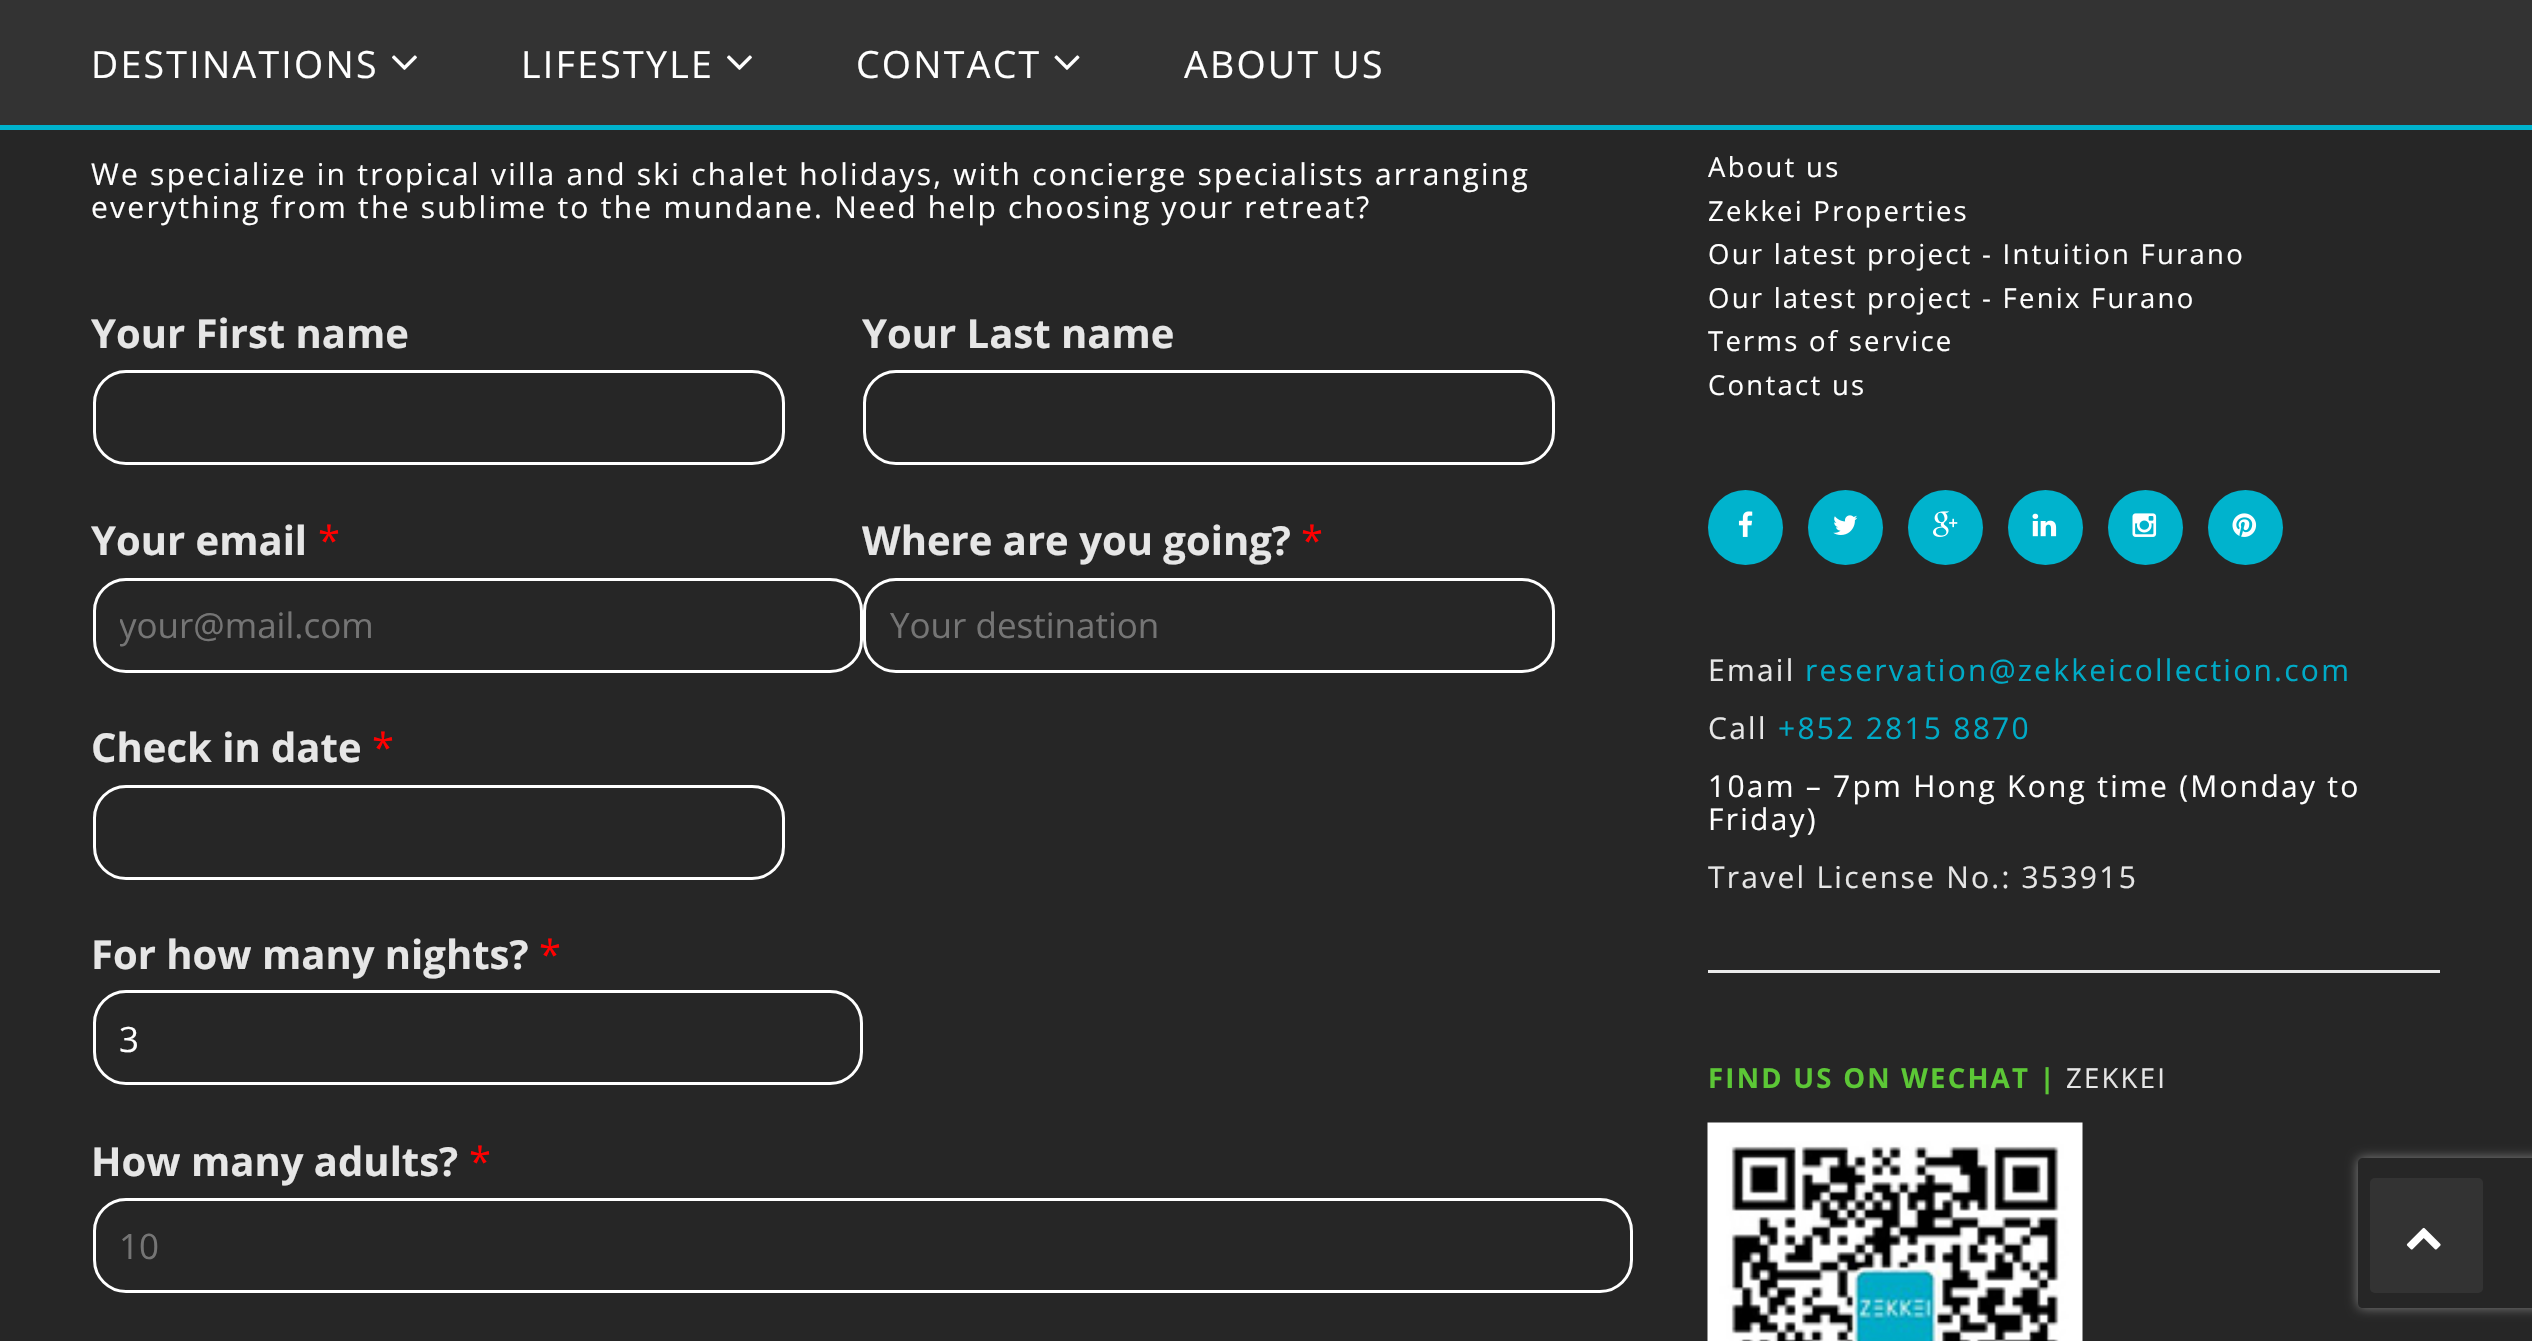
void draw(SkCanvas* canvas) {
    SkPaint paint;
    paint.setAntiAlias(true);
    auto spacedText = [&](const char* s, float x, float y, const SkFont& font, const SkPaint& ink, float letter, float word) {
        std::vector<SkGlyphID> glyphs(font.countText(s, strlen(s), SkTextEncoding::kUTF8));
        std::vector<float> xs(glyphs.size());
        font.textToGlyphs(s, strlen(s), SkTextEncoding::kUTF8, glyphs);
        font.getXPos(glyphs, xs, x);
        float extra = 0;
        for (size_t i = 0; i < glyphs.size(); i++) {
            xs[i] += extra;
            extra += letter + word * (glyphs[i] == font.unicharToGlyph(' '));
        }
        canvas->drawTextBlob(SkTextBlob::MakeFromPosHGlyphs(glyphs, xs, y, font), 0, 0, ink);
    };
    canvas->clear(0xFF262626);
    paint.setColor(0xFF333333);
    canvas->drawRect(SkRect::MakeXYWH(0, 0, 2532, 125), paint);
    paint.setColor(0xFF00B3CD);
    canvas->drawRect(SkRect::MakeXYWH(0, 125, 2532, 5), paint);
    SkFont font1(fontMgr->matchFamilyStyle("Open Sans", SkFontStyle::Normal()), 37.5f);
    font1.setSubpixel(true);
    paint.setColor(0xFFFFFFFF);
    spacedText("DESTINATIONS", 91, 78, font1, paint, 2.25f, 0);
    canvas->drawImageRect(SkImages::DeferredFromEncodedData(SkData::MakeFromFileName("img1.png")), SkRect::MakeXYWH(392, 55, 25, 15), SkSamplingOptions());
    spacedText("LIFESTYLE", 521, 78, font1, paint, 2.25f, 0);
    canvas->drawImageRect(SkImages::DeferredFromEncodedData(SkData::MakeFromFileName("img1.png")), SkRect::MakeXYWH(727, 55, 25, 15), SkSamplingOptions());
    spacedText("CONTACT", 856, 78, font1, paint, 2.25f, 0);
    canvas->drawImageRect(SkImages::DeferredFromEncodedData(SkData::MakeFromFileName("img2.png")), SkRect::MakeXYWH(1054, 55, 26, 15), SkSamplingOptions());
    spacedText("ABOUT US", 1184, 78, font1, paint, 2.25f, 0);
    SkFont font2(fontMgr->matchFamilyStyle("Open Sans", SkFontStyle::Normal()), 30);
    font2.setSubpixel(true);
    spacedText("We specialize in tropical villa and ski chalet holidays, with concierge specialists arranging", 91, 185, font2, paint, 2.25f, 0);
    spacedText("everything from the sublime to the mundane. Need help choosing your retreat?", 91, 218, font2, paint, 2.25f, 0);
    SkFont font3(fontMgr->matchFamilyStyle("Open Sans", SkFontStyle::Bold()), 40);
    font3.setSubpixel(true);
    paint.setColor(0xFFE6E6E6);
    canvas->drawString("Your First name", 91, 348, font3, paint);
    paint.setStyle(SkPaint::kStroke_Style);
    paint.setStrokeWidth(3);
    paint.setColor(0xFFFFFFFF);
    canvas->drawRoundRect(SkRect::MakeXYWH(94.5f, 371.5f, 689, 92), 31.5f, 31.5f, paint);
    paint.setStyle(SkPaint::kFill_Style);
    paint.setColor(0xFFE6E6E6);
    canvas->drawString("Your Last name", 862, 348, font3, paint);
    paint.setStyle(SkPaint::kStroke_Style);
    paint.setColor(0xFFFFFFFF);
    canvas->drawRoundRect(SkRect::MakeXYWH(864.5f, 371.5f, 689, 92), 31.5f, 31.5f, paint);
    paint.setStyle(SkPaint::kFill_Style);
    paint.setColor(0xFFE6E6E6);
    canvas->drawString("Your email", 91, 555, font3, paint);
    SkFont font4(fontMgr->matchFamilyStyle("Open Sans", SkFontStyle::Normal()), 40);
    font4.setSubpixel(true);
    paint.setColor(0xFFFF0000);
    canvas->drawString("*", 318, 555, font4, paint);
    paint.setStyle(SkPaint::kStroke_Style);
    paint.setColor(0xFFFFFFFF);
    canvas->drawRoundRect(SkRect::MakeXYWH(94.5f, 579.5f, 767, 92), 31.5f, 31.5f, paint);
    canvas->save();
    canvas->clipRect(SkRect::MakeXYWH(120, 600, 715, 48));
    SkFont font5(fontMgr->matchFamilyStyle("Open Sans", SkFontStyle::Normal()), 35);
    font5.setSubpixel(true);
    paint.setStyle(SkPaint::kFill_Style);
    paint.setColor(0xFF757575);
    canvas->drawString("your@mail.com", 119, 638, font5, paint);
    canvas->restore();
    paint.setColor(0xFFE6E6E6);
    canvas->drawString("Where are you going?", 862, 555, font3, paint);
    paint.setColor(0xFFFF0000);
    canvas->drawString("*", 1301, 555, font4, paint);
    paint.setStyle(SkPaint::kStroke_Style);
    paint.setColor(0xFFFFFFFF);
    canvas->drawRoundRect(SkRect::MakeXYWH(864.5f, 579.5f, 689, 92), 31.5f, 31.5f, paint);
    paint.setStyle(SkPaint::kFill_Style);
    paint.setColor(0xFF757575);
    canvas->drawString("Your destination", 890, 638, font5, paint);
    paint.setColor(0xFFE6E6E6);
    canvas->drawString("Check in date", 91, 762, font3, paint);
    paint.setColor(0xFFFF0000);
    canvas->drawString("*", 372, 762, font4, paint);
    paint.setStyle(SkPaint::kStroke_Style);
    paint.setColor(0xFFFFFFFF);
    canvas->drawRoundRect(SkRect::MakeXYWH(94.5f, 786.5f, 689, 92), 31.5f, 31.5f, paint);
    paint.setStyle(SkPaint::kFill_Style);
    paint.setColor(0xFFE6E6E6);
    canvas->drawString("For how many nights?", 91, 969, font3, paint);
    paint.setColor(0xFFFF0000);
    canvas->drawString("*", 539, 969, font4, paint);
    paint.setStyle(SkPaint::kStroke_Style);
    paint.setColor(0xFFFFFFFF);
    canvas->drawRoundRect(SkRect::MakeXYWH(94.5f, 991.5f, 767, 92), 31.5f, 31.5f, paint);
    paint.setStyle(SkPaint::kFill_Style);
    canvas->drawString("3", 119, 1052, font5, paint);
    paint.setColor(0xFFE6E6E6);
    canvas->drawString("How many adults?", 91, 1176, font3, paint);
    paint.setColor(0xFFFF0000);
    canvas->drawString("*", 469, 1176, font4, paint);
    paint.setStyle(SkPaint::kStroke_Style);
    paint.setColor(0xFFFFFFFF);
    canvas->drawRoundRect(SkRect::MakeXYWH(94.5f, 1199.5f, 1537, 92), 31.5f, 31.5f, paint);
    paint.setStyle(SkPaint::kFill_Style);
    paint.setColor(0xFF757575);
    canvas->drawString("10", 119, 1259, font5, paint);
    SkFont font6(fontMgr->matchFamilyStyle("Open Sans", SkFontStyle::Normal()), 27.5f);
    font6.setSubpixel(true);
    paint.setColor(0xFFFFFFFF);
    spacedText("About us", 1708, 177, font6, paint, 2.25f, 0);
    spacedText("Zekkei Properties", 1708, 221, font6, paint, 2.25f, 0);
    spacedText("Our latest project - Intuition Furano", 1708, 264, font6, paint, 2.25f, 0);
    spacedText("Our latest project - Fenix Furano", 1708, 308, font6, paint, 2.25f, 0);
    spacedText("Terms of service", 1708, 351, font6, paint, 2.25f, 0);
    spacedText("Contact us", 1708, 395, font6, paint, 2.25f, 0);
    paint.setColor(0xFF00B3CD);
    canvas->drawCircle(1745.5f, 527.5f, 37.5f, paint);
    canvas->drawImageRect(SkImages::DeferredFromEncodedData(SkData::MakeFromFileName("img3.png")), SkRect::MakeXYWH(1738, 511, 15, 26), SkSamplingOptions());
    canvas->drawCircle(1845.5f, 527.5f, 37.5f, paint);
    canvas->drawImageRect(SkImages::DeferredFromEncodedData(SkData::MakeFromFileName("img4.png")), SkRect::MakeXYWH(1833, 515, 25, 20), SkSamplingOptions());
    canvas->drawCircle(1945.5f, 527.5f, 37.5f, paint);
    canvas->drawImageRect(SkImages::DeferredFromEncodedData(SkData::MakeFromFileName("img5.png")), SkRect::MakeXYWH(1933, 511, 25, 26), SkSamplingOptions());
    canvas->drawCircle(2045.5f, 527.5f, 37.5f, paint);
    canvas->drawImageRect(SkImages::DeferredFromEncodedData(SkData::MakeFromFileName("img6.png")), SkRect::MakeXYWH(2032, 513, 25, 24), SkSamplingOptions());
    canvas->drawCircle(2145.5f, 527.5f, 37.5f, paint);
    canvas->drawImageRect(SkImages::DeferredFromEncodedData(SkData::MakeFromFileName("img7.png")), SkRect::MakeXYWH(2132, 513, 25, 24), SkSamplingOptions());
    canvas->drawCircle(2245.5f, 527.5f, 37.5f, paint);
    canvas->drawImageRect(SkImages::DeferredFromEncodedData(SkData::MakeFromFileName("img8.png")), SkRect::MakeXYWH(2232, 513, 25, 24), SkSamplingOptions());
    paint.setColor(0xFFE6E6E6);
    spacedText("Email", 1708, 681, font2, paint, 2.25f, 0);
    paint.setColor(0xFF00ABC7);
    spacedText("reservation@zekkeicollection.com", 1805, 681, font2, paint, 2.25f, 0);
    paint.setColor(0xFFE6E6E6);
    spacedText("Call", 1708, 739, font2, paint, 2.25f, 0);
    paint.setColor(0xFF00ABC7);
    spacedText("+852 2815 8870", 1778, 739, font2, paint, 2.25f, 0);
    paint.setColor(0xFFFFFFFF);
    spacedText("10am – 7pm Hong Kong time (Monday to", 1708, 797, font2, paint, 2.25f, 0);
    spacedText("Friday)", 1708, 830, font2, paint, 2.25f, 0);
    paint.setColor(0xFFE6E6E6);
    spacedText("Travel License No.: 353915", 1708, 888, font2, paint, 2.25f, 0);
    paint.setColor(0xFFEBEBEB);
    canvas->drawRect(SkRect::MakeXYWH(1708, 970, 732, 3), paint);
    SkFont font7(fontMgr->matchFamilyStyle("Open Sans", SkFontStyle::Bold()), 27.5f);
    font7.setSubpixel(true);
    paint.setColor(0xFF5CC736);
    spacedText("FIND US ON WECHAT |", 1708, 1088, font7, paint, 2.25f, 0);
    paint.setColor(0xFFE6E6E6);
    spacedText("ZEKKEI", 2066, 1088, font6, paint, 2.25f, 0);
    canvas->drawImageRect(SkImages::DeferredFromEncodedData(SkData::MakeFromFileName("img9.png")), SkRect::MakeXYWH(1707, 1122, 376, 219), SkSamplingOptions());
    canvas->save();
    canvas->clipPath(SkPathBuilder(SkPathFillType::kEvenOdd).moveTo(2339, 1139).lineTo(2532, 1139).lineTo(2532, 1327).lineTo(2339, 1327).close().moveTo(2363, 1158).lineTo(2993, 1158).cubicTo(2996, 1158, 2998, 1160, 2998, 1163).lineTo(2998, 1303).cubicTo(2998, 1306, 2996, 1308, 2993, 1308).lineTo(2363, 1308).cubicTo(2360, 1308, 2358, 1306, 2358, 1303).lineTo(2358, 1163).cubicTo(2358, 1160, 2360, 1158, 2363, 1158).close().detach(), true);
    paint.setColor(0xFF808080);
    paint.setMaskFilter(SkMaskFilter::MakeBlur(kNormal_SkBlurStyle, 6));
    canvas->drawRoundRect(SkRect::MakeXYWH(2358, 1158, 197, 150), 5, 5, paint);
    paint.setMaskFilter(nullptr);
    canvas->restore();
    paint.setColor(0xFF333333);
    canvas->drawRoundRect(SkRect::MakeXYWH(2370, 1178, 113, 115), 5, 5, paint);
    canvas->drawImageRect(SkImages::DeferredFromEncodedData(SkData::MakeFromFileName("img10.png")), SkRect::MakeXYWH(2406, 1227, 35, 23), SkSamplingOptions());
}
